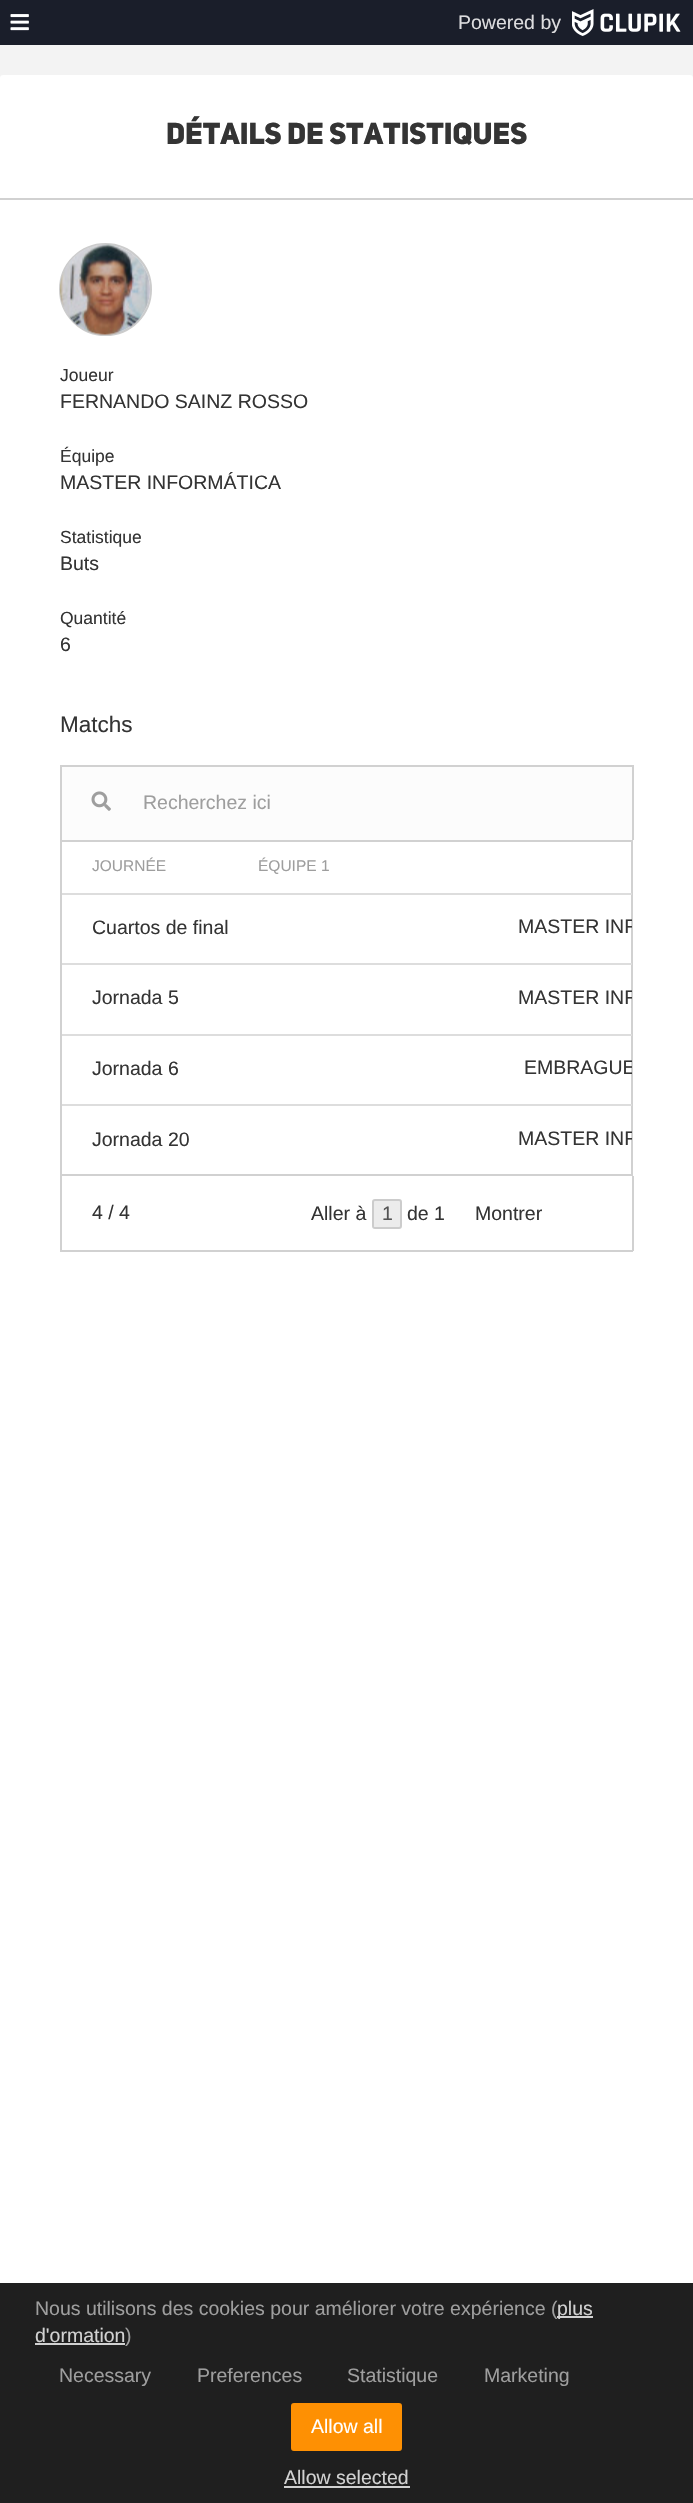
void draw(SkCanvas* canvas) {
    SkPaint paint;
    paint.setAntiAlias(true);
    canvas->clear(0xFFF3F3F3);
    paint.setColor(0xFF1A1E2A);
    canvas->drawRect(SkRect::MakeXYWH(0, 0, 693, 45), paint);
    canvas->drawImageRect(SkImages::DeferredFromEncodedData(SkData::MakeFromFileName("img1.png")), SkRect::MakeXYWH(10, 14, 19, 17), SkSamplingOptions());
    SkFont font1(fontMgr->matchFamilyStyle("Liberation Sans", SkFontStyle::Normal()), 19.5f);
    font1.setSubpixel(true);
    paint.setColor(0xFFDDDDDF);
    canvas->drawString("Powered by", 458, 29, font1, paint);
    canvas->drawImageRect(SkImages::DeferredFromEncodedData(SkData::MakeFromFileName("img2.png")), SkRect::MakeXYWH(572, 9, 109, 27), SkSamplingOptions());
    paint.setColor(0xFFFFFFFF);
    canvas->drawRoundRect(SkRect::MakeXYWH(0, 75, 693, 2354), 3, 3, paint);
    paint.setColor(0xFFD1D1D1);
    canvas->drawRect(SkRect::MakeXYWH(0, 198, 693, 2), paint);
    SkFont font2(fontMgr->matchFamilyStyle("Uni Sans", SkFontStyle(900, SkFontStyle::kNormal_Width, SkFontStyle::kUpright_Slant)), 30);
    font2.setSubpixel(true);
    paint.setColor(0xFF343434);
    canvas->drawString("Détails de statistiques", 166, 144, font2, paint);
    paint.setStyle(SkPaint::kStroke_Style);
    paint.setStrokeWidth(2);
    paint.setColor(0xFFCCCCCC);
    canvas->drawCircle(105.5f, 289.5f, 45.5f, paint);
    canvas->drawImageRect(SkImages::DeferredFromEncodedData(SkData::MakeFromFileName("img3.png")), SkRect::MakeXYWH(60, 244, 90, 91), SkSamplingOptions());
    SkFont font3(fontMgr->matchFamilyStyle("Liberation Sans", SkFontStyle::Normal()), 17.5f);
    font3.setSubpixel(true);
    paint.setStyle(SkPaint::kFill_Style);
    paint.setColor(0xFF343434);
    canvas->drawString("Joueur", 60, 381, font3, paint);
    canvas->drawString("FERNANDO SAINZ ROSSO", 60, 408, font1, paint);
    canvas->drawString("Équipe", 60, 462, font3, paint);
    canvas->drawString("MASTER INFORMÁTICA", 60, 489, font1, paint);
    canvas->drawString("Statistique", 60, 543, font3, paint);
    canvas->drawString("Buts", 60, 570, font1, paint);
    canvas->drawString("Quantité", 60, 624, font3, paint);
    canvas->drawString("6", 60, 651, font1, paint);
    SkFont font4(fontMgr->matchFamilyStyle("Liberation Sans", SkFontStyle::Normal()), 22.5f);
    font4.setSubpixel(true);
    canvas->drawString("Matchs", 60, 732, font4, paint);
    paint.setColor(0xFFFCFCFC);
    canvas->drawRect(SkRect::MakeXYWH(62, 767, 570, 73), paint);
    paint.setColor(0xFFD1D1D1);
    canvas->drawRect(SkRect::MakeXYWH(60, 765, 573, 2), paint);
    canvas->drawRect(SkRect::MakeXYWH(632, 765, 2, 75), paint);
    canvas->drawRect(SkRect::MakeXYWH(60, 765, 2, 75), paint);
    canvas->drawImageRect(SkImages::DeferredFromEncodedData(SkData::MakeFromFileName("img4.png")), SkRect::MakeXYWH(91, 791, 20, 20), SkSamplingOptions());
    paint.setColor(0xFF9E9E9E);
    canvas->drawString("Recherchez ici", 143, 809, font1, paint);
    paint.setStyle(SkPaint::kStroke_Style);
    paint.setColor(0xFFD1D1D1);
    canvas->drawRect(SkRect::MakeXYWH(61, 841, 571, 334), paint);
    SkFont font5(fontMgr->matchFamilyStyle("Liberation Sans", SkFontStyle::Normal()), 15.5f);
    font5.setSubpixel(true);
    paint.setStyle(SkPaint::kFill_Style);
    paint.setColor(0xFF9E9E9E);
    canvas->drawString("JOURNÉE", 92, 871, font5, paint);
    canvas->drawString("ÉQUIPE 1", 258, 871, font5, paint);
    paint.setColor(0xFF343434);
    canvas->drawString("Cuartos de final", 92, 934, font1, paint);
    paint.setColor(0xFFDDDDDD);
    canvas->drawRect(SkRect::MakeXYWH(62, 893, 570, 2), paint);
    canvas->save();
    canvas->clipRect(SkRect::MakeXYWH(243, 894, 389, 69));
    paint.setColor(0xFF343434);
    canvas->drawString("MASTER INF", 518, 933, font1, paint);
    canvas->restore();
    canvas->drawString("Jornada 5", 92, 1004, font1, paint);
    paint.setColor(0xFFDDDDDD);
    canvas->drawRect(SkRect::MakeXYWH(62, 963, 570, 2), paint);
    canvas->save();
    canvas->clipRect(SkRect::MakeXYWH(243, 965, 389, 69));
    paint.setColor(0xFF343434);
    canvas->drawString("MASTER INF", 518, 1004, font1, paint);
    canvas->restore();
    canvas->drawString("Jornada 6", 92, 1075, font1, paint);
    paint.setColor(0xFFDDDDDD);
    canvas->drawRect(SkRect::MakeXYWH(62, 1034, 570, 2), paint);
    canvas->save();
    canvas->clipRect(SkRect::MakeXYWH(243, 1035, 389, 69));
    paint.setColor(0xFF343434);
    canvas->drawString("EMBRAGUE", 524, 1074, font1, paint);
    canvas->restore();
    canvas->drawString("Jornada 20", 92, 1146, font1, paint);
    paint.setColor(0xFFDDDDDD);
    canvas->drawRect(SkRect::MakeXYWH(62, 1104, 570, 2), paint);
    canvas->save();
    canvas->clipRect(SkRect::MakeXYWH(243, 1106, 389, 69));
    paint.setColor(0xFF343434);
    canvas->drawString("MASTER INF", 518, 1145, font1, paint);
    canvas->restore();
    paint.setColor(0xFFD1D1D1);
    canvas->drawRect(SkRect::MakeXYWH(632, 1176, 2, 75), paint);
    canvas->drawRect(SkRect::MakeXYWH(60, 1250, 573, 2), paint);
    canvas->drawRect(SkRect::MakeXYWH(60, 1176, 2, 75), paint);
    paint.setColor(0xFF343434);
    canvas->drawString("4 / 4", 92, 1219, font1, paint);
    canvas->drawString("Aller à", 311, 1220, font1, paint);
    paint.setColor(0xFFECECEC);
    canvas->drawPath(SkPathBuilder().moveTo(375.5f, 1200).cubicTo(373, 1200, 374, 1205, 374, 1205.5f).lineTo(374, 1221.5f).cubicTo(374, 1222.5f, 373, 1227, 375.5f, 1227).lineTo(395.5f, 1227).cubicTo(401.5f, 1227, 401, 1228, 401, 1221.5f).lineTo(401, 1205.5f).cubicTo(401, 1205, 402, 1200, 399.5f, 1200).close().detach(), paint);
    paint.setStyle(SkPaint::kStroke_Style);
    paint.setColor(0xFFCCCCCC);
    canvas->drawRoundRect(SkRect::MakeXYWH(373, 1200, 28, 28), 2, 2, paint);
    paint.setStyle(SkPaint::kFill_Style);
    paint.setColor(0xFF545454);
    canvas->drawString("1", 382, 1220, font1, paint);
    paint.setColor(0xFF343434);
    canvas->drawString("de 1", 407, 1220, font1, paint);
    canvas->drawString("Montrer", 475, 1220, font1, paint);
    paint.setColor(0xFF1F1F1F);
    canvas->drawRect(SkRect::MakeXYWH(0, 2283, 693, 220), paint);
    paint.setColor(0xFF9E9E9E);
    canvas->drawString("Nous utilisons des cookies pour améliorer votre expérience (", 35, 2315, font1, paint);
    paint.setColor(0xFFD1D1D1);
    canvas->drawRect(SkRect::MakeXYWH(557, 2316, 36, 2), paint);
    canvas->drawString("plus", 557, 2315, font1, paint);
    canvas->drawString("d'ormation", 35, 2342, font1, paint);
    canvas->drawRect(SkRect::MakeXYWH(35, 2343, 90, 2), paint);
    paint.setColor(0xFF9E9E9E);
    canvas->drawString(")", 125, 2342, font1, paint);
    canvas->drawString("Necessary", 59, 2382, font1, paint);
    canvas->drawString("Preferences", 197, 2382, font1, paint);
    canvas->drawString("Statistique", 347, 2382, font1, paint);
    canvas->drawString("Marketing", 484, 2382, font1, paint);
    paint.setColor(0xFFFE9003);
    canvas->drawRoundRect(SkRect::MakeXYWH(292, 2404, 109, 46), 2, 2, paint);
    paint.setStyle(SkPaint::kStroke_Style);
    canvas->drawRoundRect(SkRect::MakeXYWH(292, 2404, 109, 46), 2, 2, paint);
    paint.setStyle(SkPaint::kFill_Style);
    paint.setColor(0xFFFFFFFF);
    canvas->drawString("Allow all", 311, 2433, font1, paint);
    paint.setColor(0xFFD1D1D1);
    canvas->drawString("Allow selected", 284, 2484, font1, paint);
    canvas->drawRect(SkRect::MakeXYWH(284, 2486, 126, 2), paint);
}
